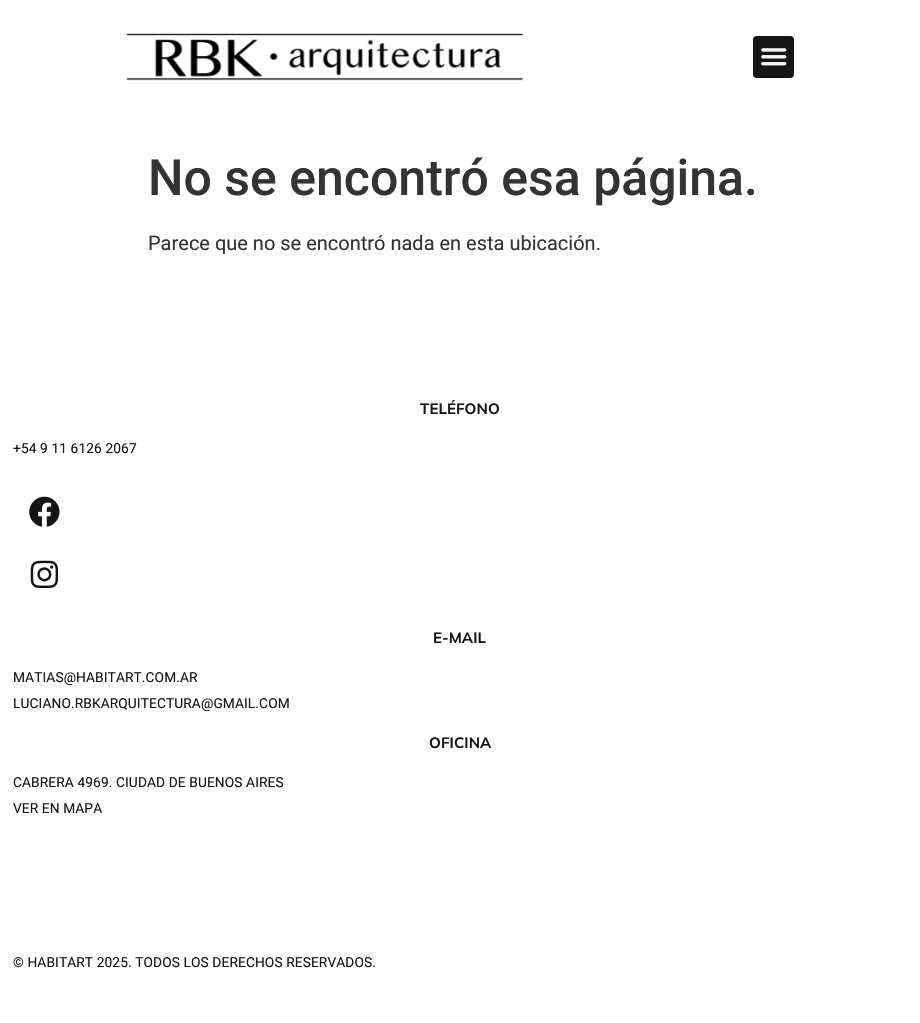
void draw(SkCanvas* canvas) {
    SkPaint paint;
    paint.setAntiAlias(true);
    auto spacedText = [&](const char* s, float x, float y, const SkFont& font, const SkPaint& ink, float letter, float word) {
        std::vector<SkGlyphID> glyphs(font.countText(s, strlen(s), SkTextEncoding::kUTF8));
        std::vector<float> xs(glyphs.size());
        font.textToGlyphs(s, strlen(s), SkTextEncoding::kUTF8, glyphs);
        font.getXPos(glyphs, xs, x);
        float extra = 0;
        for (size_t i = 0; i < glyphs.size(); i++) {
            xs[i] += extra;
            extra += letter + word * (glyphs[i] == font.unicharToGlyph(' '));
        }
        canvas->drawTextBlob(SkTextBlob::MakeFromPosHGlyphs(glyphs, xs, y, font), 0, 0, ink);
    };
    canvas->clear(0xFFFFFFFF);
    canvas->drawImageRect(SkImages::DeferredFromEncodedData(SkData::MakeFromFileName("img1.png")), SkRect::MakeXYWH(126, 33, 398, 48), SkSamplingOptions());
    paint.setColor(0xFF151515);
    canvas->drawRoundRect(SkRect::MakeXYWH(753, 36, 41, 42), 4, 4, paint);
    canvas->drawImageRect(SkImages::DeferredFromEncodedData(SkData::MakeFromFileName("img2.png")), SkRect::MakeXYWH(761, 48, 26, 18), SkSamplingOptions());
    SkFont font1(fontMgr->matchFamilyStyle("Roboto", SkFontStyle(500, SkFontStyle::kNormal_Width, SkFontStyle::kUpright_Slant)), 50);
    font1.setSubpixel(true);
    paint.setColor(0xFF333333);
    canvas->drawString("No se encontró esa página.", 148, 195, font1, paint);
    SkFont font2(fontMgr->matchFamilyStyle("Roboto", SkFontStyle::Normal()), 20);
    font2.setSubpixel(true);
    canvas->drawString("Parece que no se encontró nada en esta ubicación.", 148, 250, font2, paint);
    SkFont font3(fontMgr->matchFamilyStyle("Mulish", SkFontStyle::Bold()), 15);
    font3.setSubpixel(true);
    paint.setColor(0xFF151515);
    spacedText("TELÉFONO", 420, 414, font3, paint, 0.1f, 0);
    SkFont font4(fontMgr->matchFamilyStyle("Roboto", SkFontStyle::Normal()), 13.75f);
    font4.setSubpixel(true);
    spacedText("+54 9 11 6126 2067", 13, 453, font4, paint, 0.1f, 0);
    canvas->drawImageRect(SkImages::DeferredFromEncodedData(SkData::MakeFromFileName("img3.png")), SkRect::MakeXYWH(29, 496, 31, 31), SkSamplingOptions());
    canvas->drawImageRect(SkImages::DeferredFromEncodedData(SkData::MakeFromFileName("img4.png")), SkRect::MakeXYWH(30, 560, 29, 29), SkSamplingOptions());
    spacedText("E-MAIL", 433, 643, font3, paint, 0.1f, 0);
    spacedText("MATIAS@HABITART.COM.AR", 13, 682, font4, paint, 0.1f, 0);
    spacedText("LUCIANO.RBKARQUITECTURA@GMAIL.COM", 13, 708, font4, paint, 0.1f, 0);
    spacedText("OFICINA", 429, 748, font3, paint, 0.1f, 0);
    spacedText("CABRERA 4969. CIUDAD DE BUENOS AIRES", 13, 787, font4, paint, 0.1f, 0);
    spacedText("VER EN MAPA", 13, 813, font4, paint, 0.1f, 0);
    spacedText("© HABITART 2025. TODOS LOS DERECHOS RESERVADOS.", 13, 967, font4, paint, 0.1f, 0);
}
